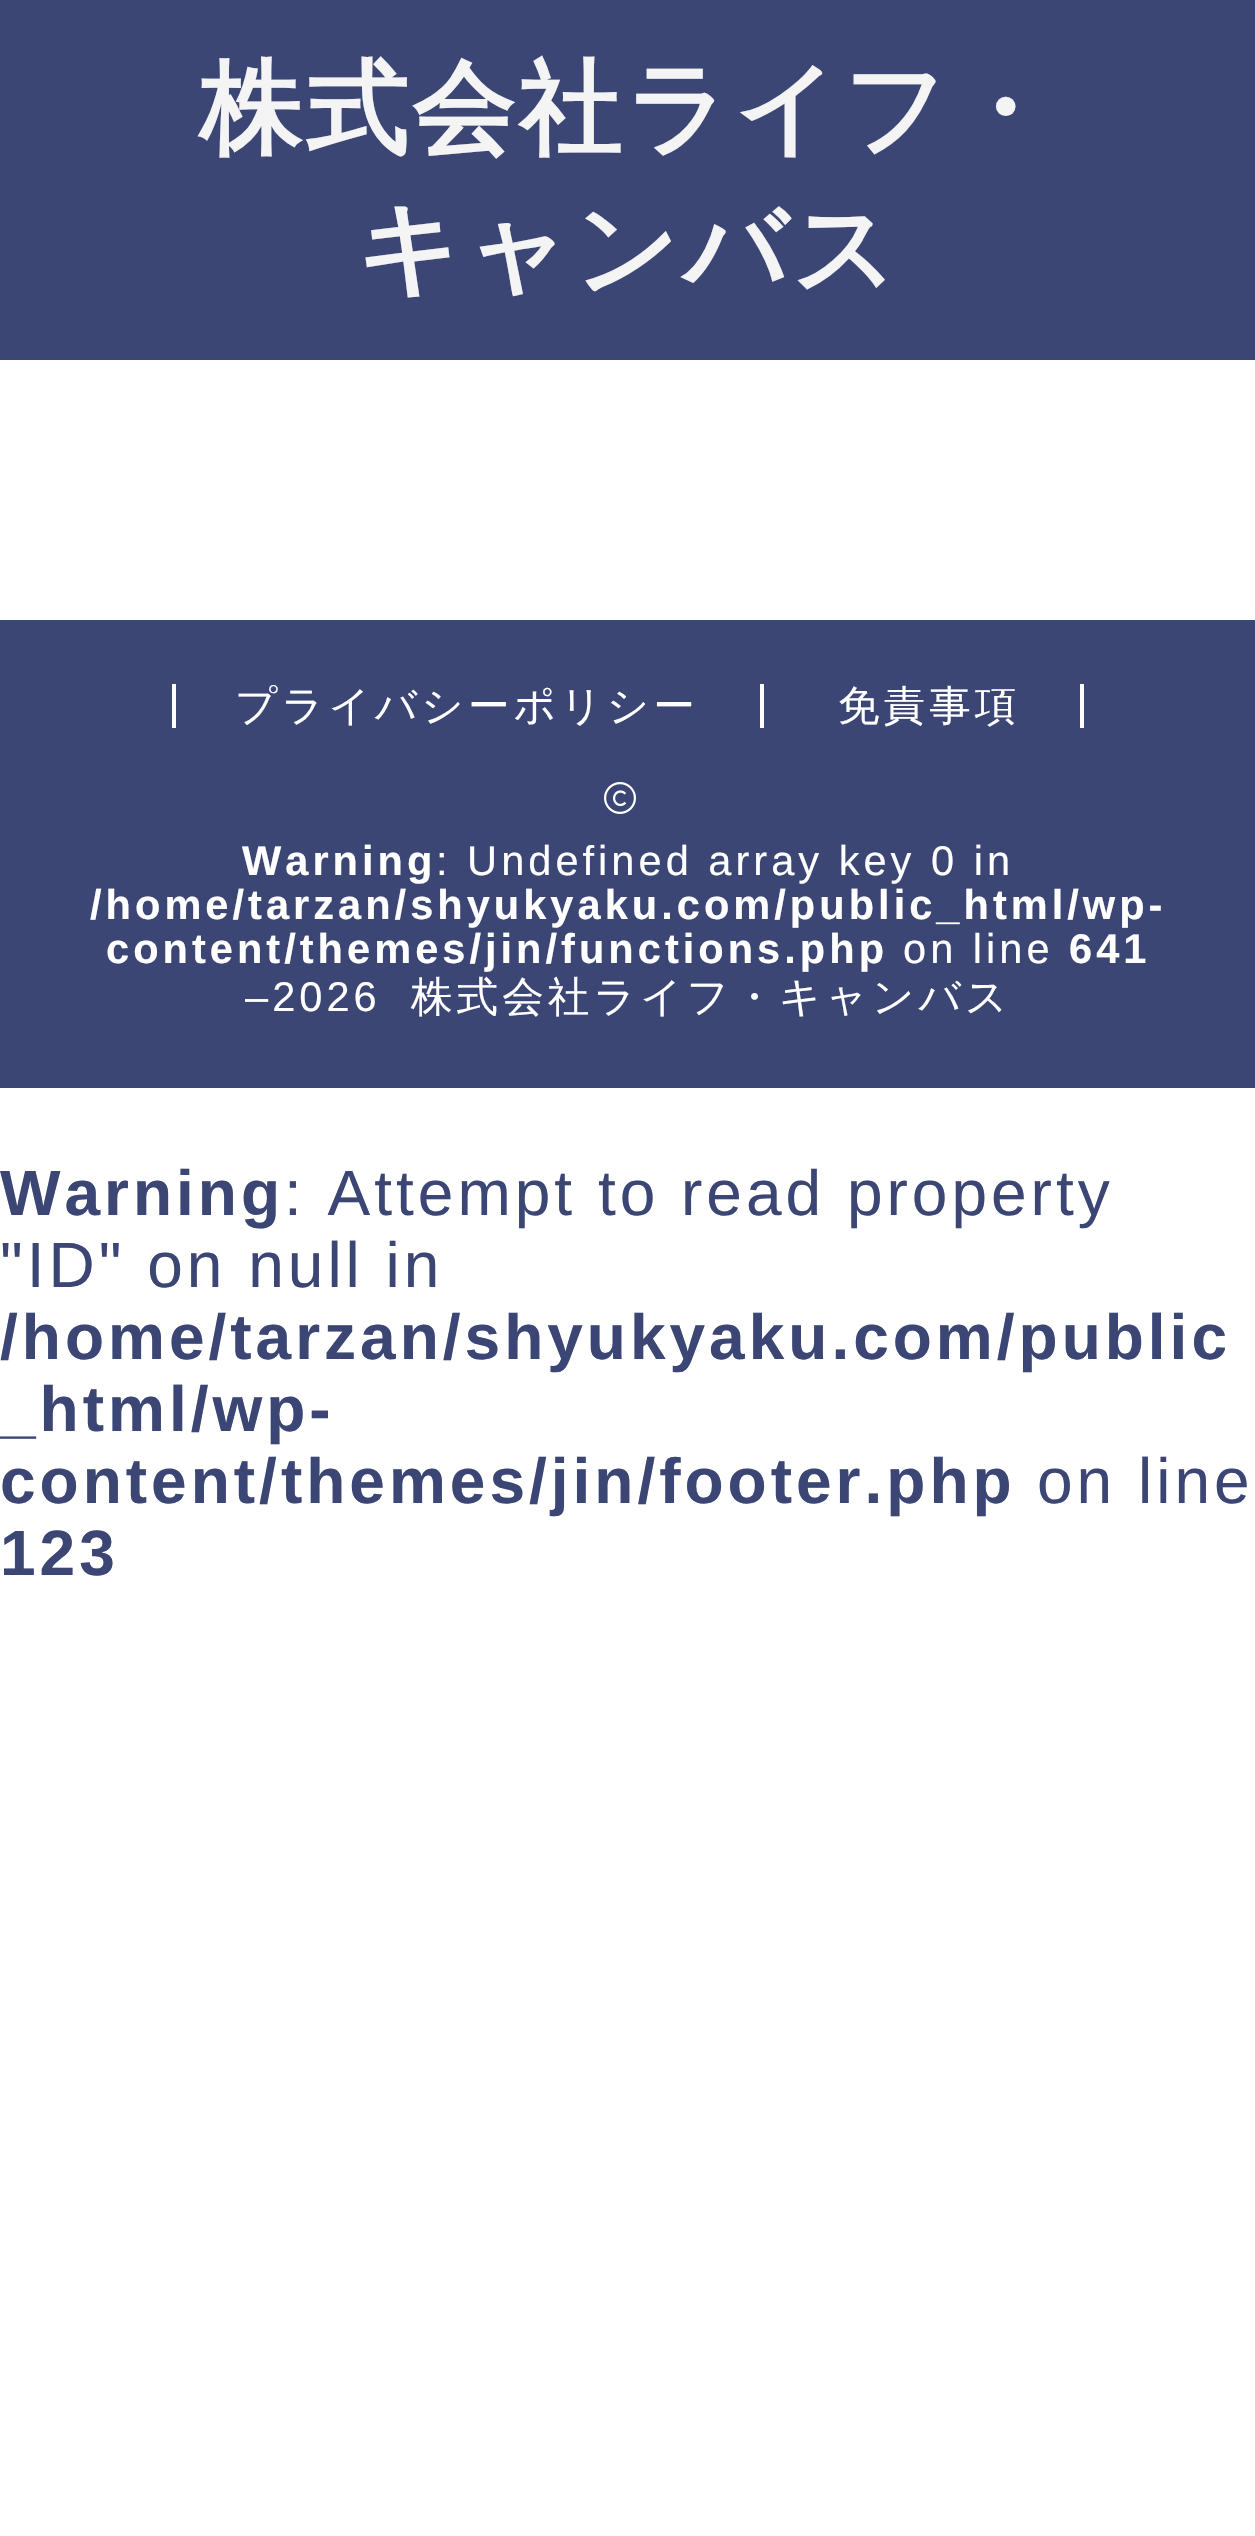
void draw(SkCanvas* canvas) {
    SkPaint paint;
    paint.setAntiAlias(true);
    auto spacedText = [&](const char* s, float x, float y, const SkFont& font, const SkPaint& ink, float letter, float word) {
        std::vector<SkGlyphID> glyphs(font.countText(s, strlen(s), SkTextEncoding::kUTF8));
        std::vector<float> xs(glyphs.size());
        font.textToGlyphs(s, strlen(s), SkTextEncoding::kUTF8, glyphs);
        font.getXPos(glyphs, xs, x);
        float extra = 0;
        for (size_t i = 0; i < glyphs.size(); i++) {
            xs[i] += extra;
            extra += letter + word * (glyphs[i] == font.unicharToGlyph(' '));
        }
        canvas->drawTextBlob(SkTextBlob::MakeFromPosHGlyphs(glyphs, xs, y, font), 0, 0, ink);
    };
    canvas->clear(0xFFFFFFFF);
    paint.setColor(0xFF3B4675);
    canvas->drawRect(SkRect::MakeXYWH(0, 0, 1255, 360), paint);
    SkFont font1(fontMgr->matchFamilyStyle("WenQuanYi Zen Hei", SkFontStyle::Bold()), 102.5f);
    font1.setSubpixel(true);
    paint.setColor(0xFFF4F4F4);
    spacedText("株式会社ライフ・", 199, 144, font1, paint, 4, 0);
    spacedText("キャンバス", 356, 284, font1, paint, 4, 0);
    paint.setColor(0xFF3B4675);
    canvas->drawRect(SkRect::MakeXYWH(0, 620, 1255, 468), paint);
    SkFont font2(fontMgr->matchFamilyStyle("WenQuanYi Zen Hei", SkFontStyle(500, SkFontStyle::kNormal_Width, SkFontStyle::kUpright_Slant)), 41.6f);
    font2.setSubpixel(true);
    paint.setColor(0xFFFFFFFF);
    spacedText("プライバシーポリシー", 235, 720, font2, paint, 4, 0);
    canvas->drawRect(SkRect::MakeXYWH(760, 684, 4, 44), paint);
    canvas->drawRect(SkRect::MakeXYWH(172, 684, 4, 44), paint);
    spacedText("免責事項", 838, 720, font2, paint, 4, 0);
    canvas->drawRect(SkRect::MakeXYWH(1080, 684, 4, 44), paint);
    canvas->drawImageRect(SkImages::DeferredFromEncodedData(SkData::MakeFromFileName("img1.png")), SkRect::MakeXYWH(604, 782, 32, 32), SkSamplingOptions());
    SkFont font3(fontMgr->matchFamilyStyle("Liberation Sans", SkFontStyle::Bold()), 41.6f);
    font3.setSubpixel(true);
    spacedText("Warning", 242, 875, font3, paint, 4, 0);
    SkFont font4(fontMgr->matchFamilyStyle("Liberation Sans", SkFontStyle::Normal()), 41.6f);
    font4.setSubpixel(true);
    spacedText(": Undefined array key 0 in", 436, 875, font4, paint, 4, 0);
    spacedText("/home/tarzan/shyukyaku.com/public_html/wp-", 90, 919, font3, paint, 4, 0);
    spacedText("content/themes/jin/functions.php", 106, 963, font3, paint, 4, 0);
    spacedText("on line", 903, 963, font4, paint, 4, 0);
    spacedText("641", 1069, 963, font3, paint, 4, 0);
    spacedText("–2026", 245, 1011, font4, paint, 4, 0);
    spacedText("株式会社ライフ・キャンバス", 411, 1011, font2, paint, 4, 0);
    SkFont font5(fontMgr->matchFamilyStyle("Liberation Sans", SkFontStyle::Bold()), 64);
    font5.setSubpixel(true);
    paint.setColor(0xFF3B4675);
    spacedText("Warning", 0, 1215, font5, paint, 4, 0);
    SkFont font6(fontMgr->matchFamilyStyle("Liberation Sans", SkFontStyle::Normal()), 64);
    font6.setSubpixel(true);
    spacedText(": Attempt to read property", 284, 1215, font6, paint, 4, 0);
    spacedText("\"ID\" on null in", 0, 1287, font6, paint, 4, 0);
    spacedText("/home/tarzan/shyukyaku.com/public", 0, 1359, font5, paint, 4, 0);
    spacedText("_html/wp-", 0, 1431, font5, paint, 4, 0);
    spacedText("content/themes/jin/footer.php", 0, 1503, font5, paint, 4, 0);
    spacedText("on line", 1037, 1503, font6, paint, 4, 0);
    spacedText("123", 0, 1575, font5, paint, 4, 0);
}
